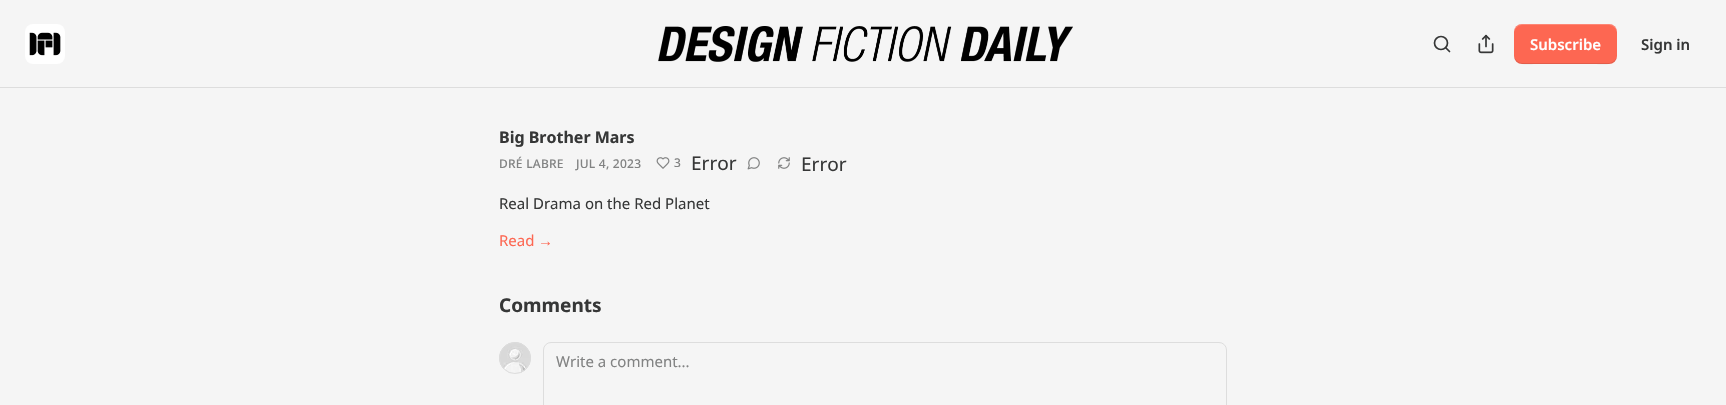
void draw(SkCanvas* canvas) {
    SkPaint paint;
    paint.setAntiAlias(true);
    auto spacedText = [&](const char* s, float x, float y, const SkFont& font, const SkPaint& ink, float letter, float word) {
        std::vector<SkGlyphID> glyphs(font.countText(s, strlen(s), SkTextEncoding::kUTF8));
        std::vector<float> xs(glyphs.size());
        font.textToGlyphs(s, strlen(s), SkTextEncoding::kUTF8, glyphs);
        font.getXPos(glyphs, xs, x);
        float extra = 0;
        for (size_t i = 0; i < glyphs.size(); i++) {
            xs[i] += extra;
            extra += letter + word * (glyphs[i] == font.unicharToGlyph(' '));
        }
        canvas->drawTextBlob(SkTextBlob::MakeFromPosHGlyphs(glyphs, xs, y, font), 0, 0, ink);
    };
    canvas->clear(0xFFF5F5F5);
    paint.setColor(0xFFDDDDDD);
    canvas->drawRect(SkRect::MakeXYWH(0, 87, 1726, 1), paint);
    paint.setColor(0xFFFFFFFF);
    canvas->drawRoundRect(SkRect::MakeXYWH(25, 24, 40, 40), 8, 8, paint);
    canvas->drawImageRect(SkImages::DeferredFromEncodedData(SkData::MakeFromFileName("img1.png")), SkRect::MakeXYWH(29, 32, 32, 24), SkSamplingOptions());
    canvas->drawImageRect(SkImages::DeferredFromEncodedData(SkData::MakeFromFileName("img2.png")), SkRect::MakeXYWH(658, 26, 415, 36), SkSamplingOptions());
    paint.setStyle(SkPaint::kStroke_Style);
    paint.setStrokeWidth(1.7f);
    paint.setColor(0xFF363737);
    canvas->drawCircle(1441, 43, 6.5f, paint);
    paint.setStrokeCap(SkPaint::kRound_Cap);
    paint.setStrokeJoin(SkPaint::kRound_Join);
    canvas->drawPath(SkPathBuilder().moveTo(1449.5f, 51.5f).lineTo(1446, 48).detach(), paint);
    canvas->drawImageRect(SkImages::DeferredFromEncodedData(SkData::MakeFromFileName("img3.png")), SkRect::MakeXYWH(1478, 34, 16, 20), SkSamplingOptions());
    paint.setStyle(SkPaint::kFill_Style);
    paint.setColor(0xFFFD6752);
    canvas->drawRoundRect(SkRect::MakeXYWH(1514, 24, 103, 40), 8, 8, paint);
    paint.setColor(0x1A000000);
    canvas->drawPath(SkPathBuilder().moveTo(1514, 55).cubicTo(1514, 67, 1528, 64, 1536, 64).lineTo(1594, 64).cubicTo(1603, 64, 1617, 67, 1617, 55).cubicTo(1617, 59, 1613, 63, 1609, 63).lineTo(1522, 63).cubicTo(1518, 63, 1514, 59, 1514, 55).close().detach(), paint);
    paint.setColor(0x33FFFFFF);
    canvas->drawPath(SkPathBuilder().moveTo(1522, 25).lineTo(1609, 25).cubicTo(1613, 25, 1617, 29, 1617, 33).cubicTo(1617, 21, 1603, 24, 1594, 24).lineTo(1536, 24).cubicTo(1528, 24, 1514, 21, 1514, 33).cubicTo(1514, 29, 1518, 25, 1522, 25).close().detach(), paint);
    SkFont font1(fontMgr->matchFamilyStyle("Noto Sans", SkFontStyle(600, SkFontStyle::kNormal_Width, SkFontStyle::kUpright_Slant)), 15);
    font1.setSubpixel(true);
    paint.setColor(0xFFFFFFFF);
    canvas->drawString("Subscribe", 1530, 50, font1, paint);
    paint.setColor(0xFF363737);
    canvas->drawString("Sign in", 1641, 50, font1, paint);
    SkFont font2(fontMgr->matchFamilyStyle("Noto Sans", SkFontStyle::Bold()), 16);
    font2.setSubpixel(true);
    canvas->drawString("Big Brother Mars", 499, 143, font2, paint);
    SkFont font3(fontMgr->matchFamilyStyle("Noto Sans", SkFontStyle(500, SkFontStyle::kNormal_Width, SkFontStyle::kUpright_Slant)), 12);
    font3.setSubpixel(true);
    paint.setColor(0xFF828383);
    spacedText("DRÉ LABRE", 499, 168, font3, paint, 0.25f, 0);
    spacedText("JUL 4, 2023", 576, 168, font3, paint, 0.25f, 0);
    canvas->drawImageRect(SkImages::DeferredFromEncodedData(SkData::MakeFromFileName("img4.png")), SkRect::MakeXYWH(656, 157, 14, 12), SkSamplingOptions());
    spacedText("3", 674, 167, font3, paint, 0.25f, 0);
    SkFont font4(fontMgr->matchFamilyStyle("Noto Sans", SkFontStyle::Normal()), 19);
    font4.setSubpixel(true);
    paint.setColor(0xFF363737);
    canvas->drawString("Error", 691, 170, font4, paint);
    canvas->drawImageRect(SkImages::DeferredFromEncodedData(SkData::MakeFromFileName("img5.png")), SkRect::MakeXYWH(747, 157, 13, 13), SkSamplingOptions());
    canvas->drawImageRect(SkImages::DeferredFromEncodedData(SkData::MakeFromFileName("img6.png")), SkRect::MakeXYWH(778, 157, 12, 12), SkSamplingOptions());
    canvas->drawString("Error", 801, 171, font4, paint);
    SkFont font5(fontMgr->matchFamilyStyle("Noto Sans", SkFontStyle::Normal()), 15);
    font5.setSubpixel(true);
    canvas->drawString("Real Drama on the Red Planet", 499, 209, font5, paint);
    paint.setColor(0xFFFD6752);
    canvas->drawString("Read", 499, 246, font5, paint);
    SkFont font6(fontMgr->matchFamilyStyle("Liberation Sans", SkFontStyle::Normal()), 15);
    font6.setSubpixel(true);
    canvas->drawString("→", 538, 246, font6, paint);
    SkFont font7(fontMgr->matchFamilyStyle("Noto Sans", SkFontStyle::Bold()), 19);
    font7.setSubpixel(true);
    paint.setColor(0xFF363737);
    canvas->drawString("Comments", 499, 312, font7, paint);
    paint.setStyle(SkPaint::kStroke_Style);
    paint.setStrokeWidth(1);
    paint.setStrokeCap(SkPaint::kButt_Cap);
    paint.setStrokeJoin(SkPaint::kMiter_Join);
    paint.setColor(0xFFDDDDDD);
    canvas->drawCircle(515, 358, 15.5f, paint);
    canvas->drawImageRect(SkImages::DeferredFromEncodedData(SkData::MakeFromFileName("img7.png")), SkRect::MakeXYWH(499, 342, 32, 32), SkSamplingOptions());
    canvas->drawCircle(515, 358, 15.5f, paint);
    canvas->drawRoundRect(SkRect::MakeXYWH(543.5f, 342.5f, 683, 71), 7.5f, 7.5f, paint);
    paint.setStyle(SkPaint::kFill_Style);
    paint.setColor(0xFF828383);
    canvas->drawString("Write a comment...", 556, 367, font5, paint);
}
